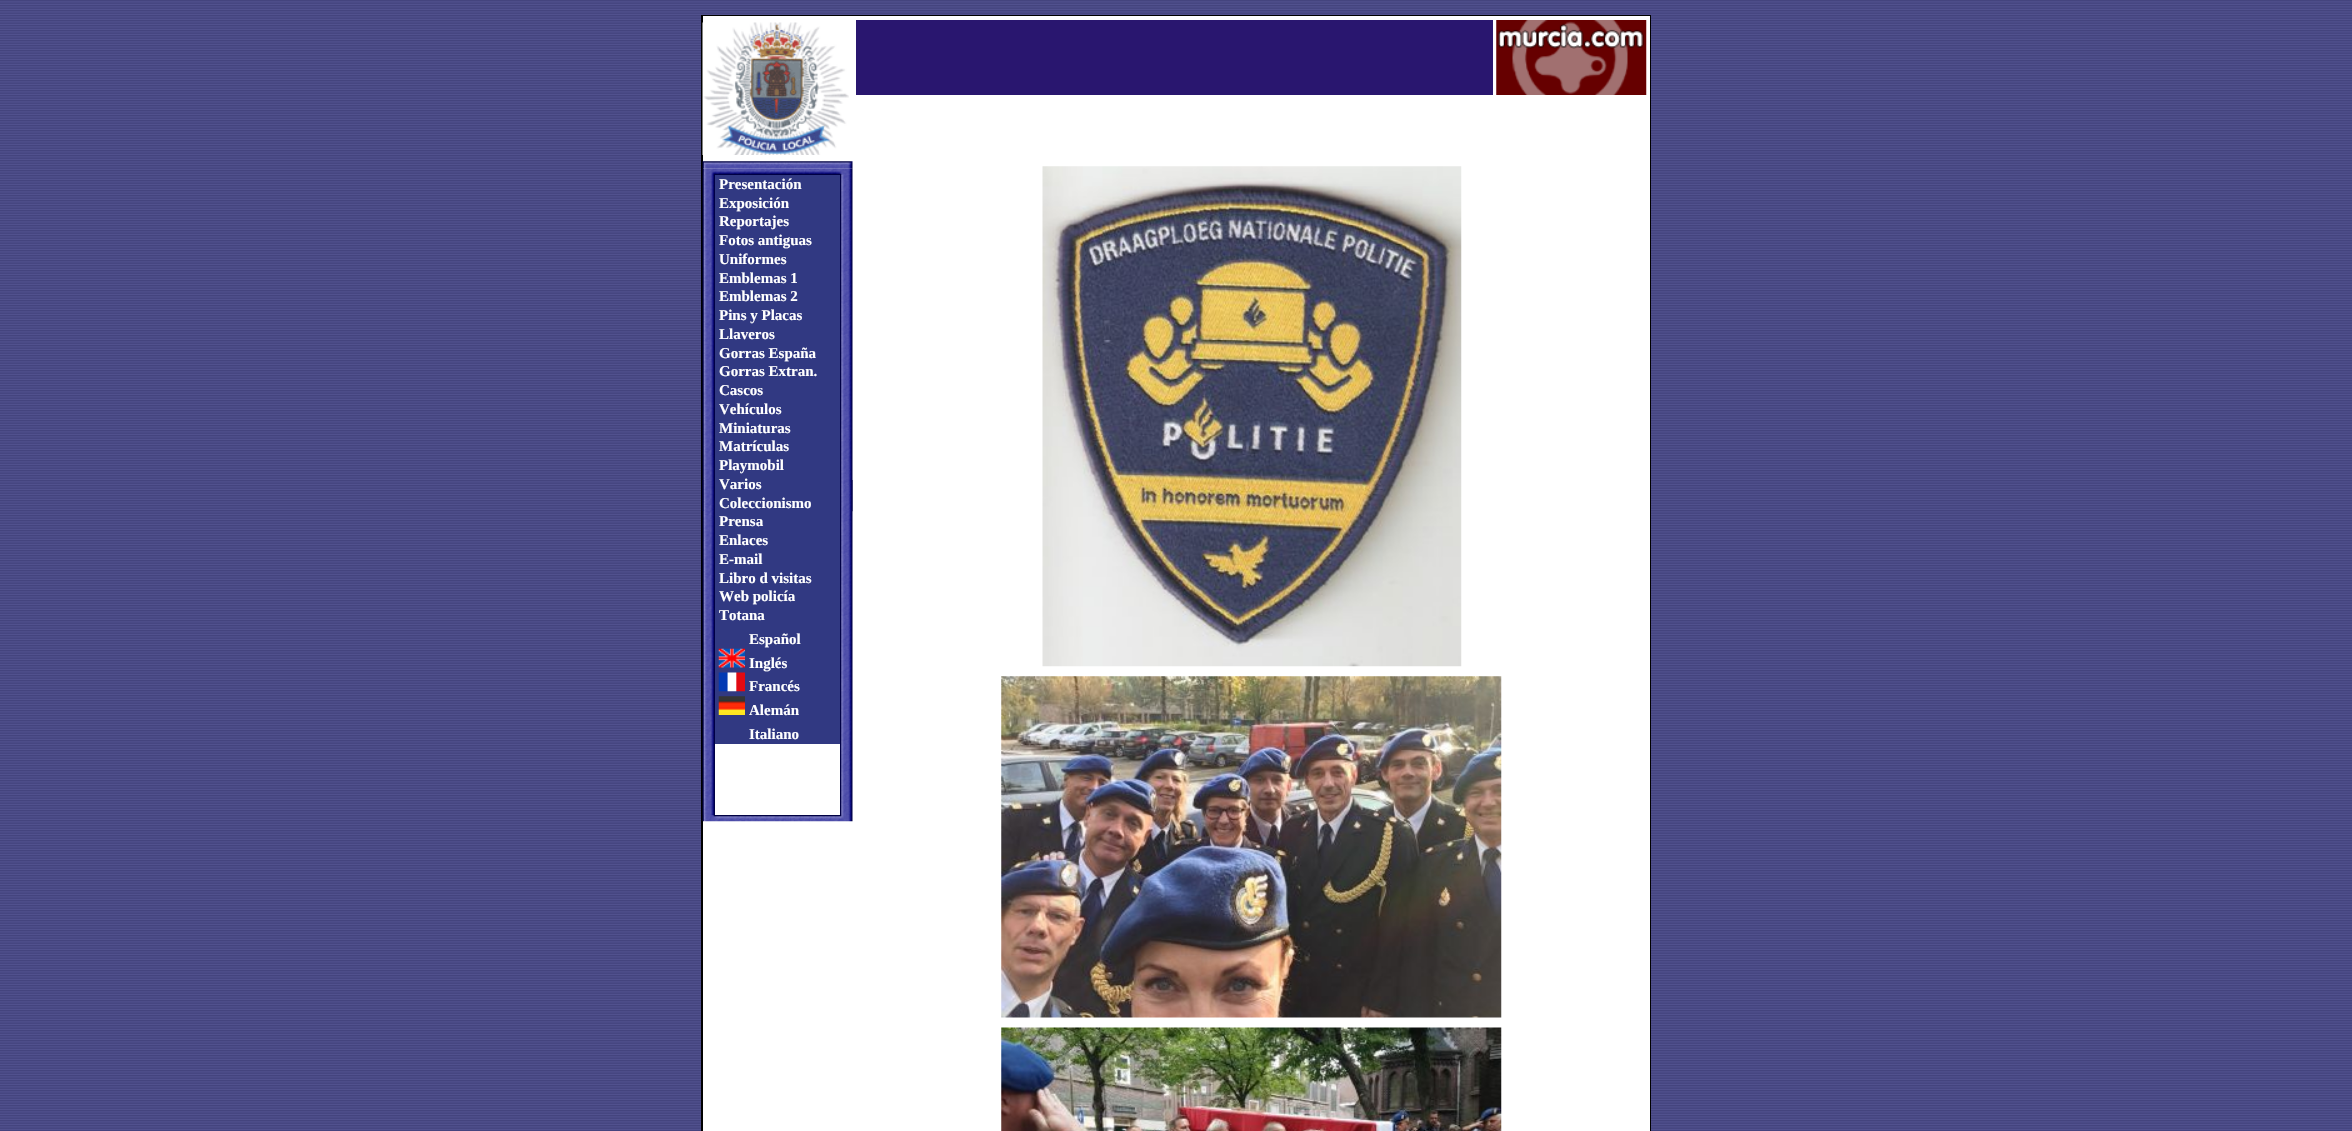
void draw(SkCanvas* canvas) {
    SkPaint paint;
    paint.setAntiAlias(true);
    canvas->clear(0xFFFFFFFF);
    canvas->drawImageRect(SkImages::DeferredFromEncodedData(SkData::MakeFromFileName("img1.png")), SkRect::MakeXYWH(0, 0, 2352, 1131), SkSamplingOptions());
    paint.setColor(0xFF000000);
    canvas->drawRect(SkRect::MakeXYWH(701, 15, 950, 1116), paint);
    paint.setColor(0xFFFFFFFF);
    canvas->drawRect(SkRect::MakeXYWH(703, 16, 947, 1115), paint);
    canvas->drawImageRect(SkImages::DeferredFromEncodedData(SkData::MakeFromFileName("img2.png")), SkRect::MakeXYWH(702, 22, 147, 133), SkSamplingOptions());
    canvas->drawImageRect(SkImages::DeferredFromEncodedData(SkData::MakeFromFileName("img3.png")), SkRect::MakeXYWH(702, 161, 151, 8), SkSamplingOptions());
    canvas->drawImageRect(SkImages::DeferredFromEncodedData(SkData::MakeFromFileName("img4.png")), SkRect::MakeXYWH(702, 168, 151, 7), SkSamplingOptions());
    canvas->drawImageRect(SkImages::DeferredFromEncodedData(SkData::MakeFromFileName("img5.png")), SkRect::MakeXYWH(702, 175, 13, 640), SkSamplingOptions());
    canvas->drawImageRect(SkImages::DeferredFromEncodedData(SkData::MakeFromFileName("img6.png")), SkRect::MakeXYWH(702, 480, 12, 31), SkSamplingOptions());
    paint.setColor(0xFF313982);
    canvas->drawRect(SkRect::MakeXYWH(715, 175, 125, 569), paint);
    SkFont font1(fontMgr->matchFamilyStyle("Liberation Serif", SkFontStyle::Bold()), 15);
    font1.setSubpixel(true);
    paint.setColor(0xFFFFFFFF);
    canvas->drawString("Presentación", 719, 189, font1, paint);
    canvas->drawString("Exposición", 719, 208, font1, paint);
    canvas->drawString("Reportajes", 719, 226, font1, paint);
    canvas->drawString("Fotos antiguas", 719, 245, font1, paint);
    canvas->drawString("Uniformes", 719, 264, font1, paint);
    canvas->drawString("Emblemas 1", 719, 283, font1, paint);
    canvas->drawString("Emblemas 2", 719, 301, font1, paint);
    canvas->drawString("Pins y Placas", 719, 320, font1, paint);
    canvas->drawString("Llaveros", 719, 339, font1, paint);
    canvas->drawString("Gorras España", 719, 358, font1, paint);
    canvas->drawString("Gorras Extran.", 719, 376, font1, paint);
    canvas->drawString("Cascos", 719, 395, font1, paint);
    canvas->drawString("Vehículos", 719, 414, font1, paint);
    canvas->drawString("Miniaturas", 719, 433, font1, paint);
    canvas->drawString("Matrículas", 719, 451, font1, paint);
    canvas->drawString("Playmobil", 719, 470, font1, paint);
    canvas->drawString("Varios", 719, 489, font1, paint);
    canvas->drawString("Coleccionismo", 719, 508, font1, paint);
    canvas->drawString("Prensa", 719, 526, font1, paint);
    canvas->drawString("Enlaces", 719, 545, font1, paint);
    canvas->drawString("E-mail", 719, 564, font1, paint);
    canvas->drawString("Libro d visitas", 719, 583, font1, paint);
    canvas->drawString("Web policía", 719, 601, font1, paint);
    canvas->drawString("Totana", 719, 620, font1, paint);
    canvas->drawString("Español", 749, 644, font1, paint);
    canvas->drawImageRect(SkImages::DeferredFromEncodedData(SkData::MakeFromFileName("img7.png")), SkRect::MakeXYWH(718, 648, 27, 20), SkSamplingOptions());
    canvas->drawString("Inglés", 749, 668, font1, paint);
    canvas->drawImageRect(SkImages::DeferredFromEncodedData(SkData::MakeFromFileName("img8.png")), SkRect::MakeXYWH(718, 672, 27, 20), SkSamplingOptions());
    canvas->drawString("Francés", 749, 691, font1, paint);
    canvas->drawImageRect(SkImages::DeferredFromEncodedData(SkData::MakeFromFileName("img9.png")), SkRect::MakeXYWH(718, 696, 27, 19), SkSamplingOptions());
    canvas->drawString("Alemán", 749, 715, font1, paint);
    canvas->drawString("Italiano", 749, 739, font1, paint);
    canvas->drawImageRect(SkImages::DeferredFromEncodedData(SkData::MakeFromFileName("img10.png")), SkRect::MakeXYWH(840, 175, 13, 640), SkSamplingOptions());
    canvas->drawImageRect(SkImages::DeferredFromEncodedData(SkData::MakeFromFileName("img11.png")), SkRect::MakeXYWH(841, 480, 12, 32), SkSamplingOptions());
    canvas->drawImageRect(SkImages::DeferredFromEncodedData(SkData::MakeFromFileName("img12.png")), SkRect::MakeXYWH(702, 815, 151, 7), SkSamplingOptions());
    paint.setColor(0xFF29166F);
    canvas->drawRect(SkRect::MakeXYWH(856, 20, 637, 75), paint);
    canvas->drawImageRect(SkImages::DeferredFromEncodedData(SkData::MakeFromFileName("img13.png")), SkRect::MakeXYWH(1496, 20, 151, 75), SkSamplingOptions());
    canvas->drawImageRect(SkImages::DeferredFromEncodedData(SkData::MakeFromFileName("img14.png")), SkRect::MakeXYWH(1042, 166, 420, 501), SkSamplingOptions());
    canvas->drawImageRect(SkImages::DeferredFromEncodedData(SkData::MakeFromFileName("img15.png")), SkRect::MakeXYWH(1001, 676, 501, 342), SkSamplingOptions());
    canvas->drawImageRect(SkImages::DeferredFromEncodedData(SkData::MakeFromFileName("img16.png")), SkRect::MakeXYWH(1001, 1027, 501, 104), SkSamplingOptions());
}
